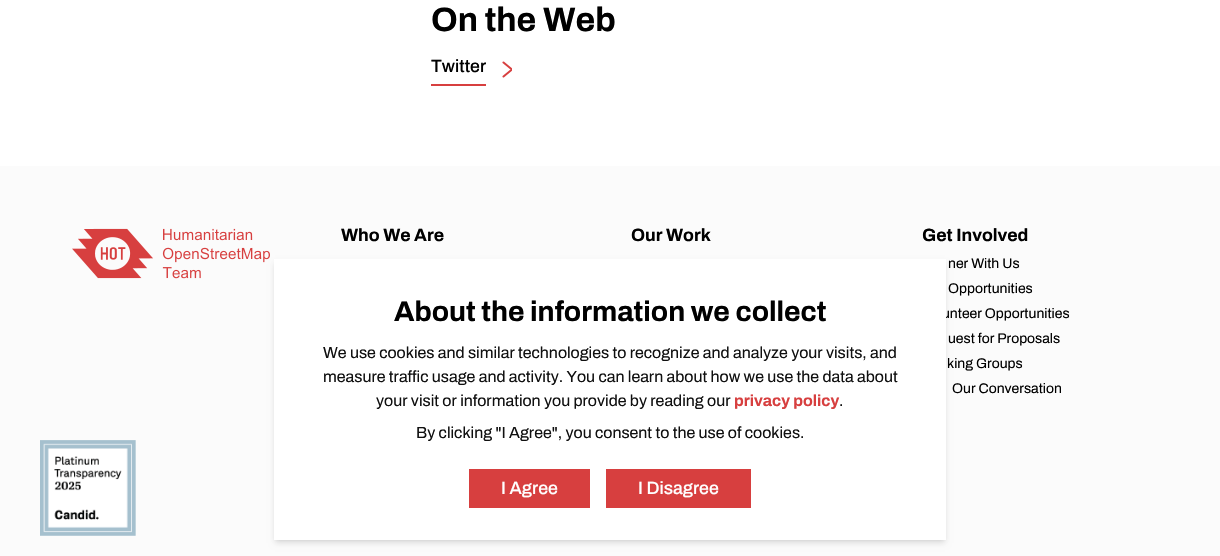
void draw(SkCanvas* canvas) {
    SkPaint paint;
    paint.setAntiAlias(true);
    canvas->clear(0xFFFFFFFF);
    SkFont font1(fontMgr->matchFamilyStyle("Archivo", SkFontStyle::Bold()), 33.75f);
    font1.setSubpixel(true);
    paint.setColor(0xFF000000);
    canvas->drawString("On the Web", 431, 31, font1, paint);
    paint.setColor(0xFFD73F3F);
    canvas->drawRect(SkRect::MakeXYWH(431, 84, 55, 2), paint);
    SkFont font2(fontMgr->matchFamilyStyle("Archivo", SkFontStyle(500, SkFontStyle::kNormal_Width, SkFontStyle::kUpright_Slant)), 17.75f);
    font2.setSubpixel(true);
    paint.setColor(0xFF000000);
    canvas->drawString("Twitter", 431, 72, font2, paint);
    canvas->save();
    canvas->clipRect(SkRect::MakeXYWH(502, 61, 10, 17));
    paint.setStyle(SkPaint::kStroke_Style);
    paint.setStrokeWidth(2);
    paint.setStrokeCap(SkPaint::kRound_Cap);
    paint.setStrokeJoin(SkPaint::kRound_Join);
    paint.setColor(0xFFD73F3F);
    canvas->drawPath(SkPathBuilder().moveTo(503.5f, 62.5f).lineTo(512, 69.5f).lineTo(503.5f, 76.5f).detach(), paint);
    canvas->restore();
    paint.setStyle(SkPaint::kFill_Style);
    paint.setColor(0xFFFBFBFB);
    canvas->drawRect(SkRect::MakeXYWH(0, 166, 1220, 390), paint);
    canvas->drawImageRect(SkImages::DeferredFromEncodedData(SkData::MakeFromFileName("img1.png")), SkRect::MakeXYWH(72, 228, 198, 51), SkSamplingOptions());
    SkFont font3(fontMgr->matchFamilyStyle("Archivo", SkFontStyle::Bold()), 17.75f);
    font3.setSubpixel(true);
    paint.setColor(0xFF000000);
    canvas->drawString("Who We Are", 341, 241, font3, paint);
    canvas->drawString("Our Work", 631, 241, font3, paint);
    canvas->drawString("Get Involved", 922, 241, font3, paint);
    SkFont font4(fontMgr->matchFamilyStyle("Archivo", SkFontStyle::Normal()), 14);
    font4.setSubpixel(true);
    canvas->drawString("ner With Us", 948, 268, font4, paint);
    canvas->drawString("Opportunities", 948, 293, font4, paint);
    canvas->drawString("unteer Opportunities", 942, 318, font4, paint);
    canvas->drawString("uest for Proposals", 948, 343, font4, paint);
    canvas->drawString("king Groups", 947, 368, font4, paint);
    canvas->drawString("Our Conversation", 952, 393, font4, paint);
    canvas->drawImageRect(SkImages::DeferredFromEncodedData(SkData::MakeFromFileName("img2.png")), SkRect::MakeXYWH(40, 440, 96, 96), SkSamplingOptions());
    paint.setColor(0x1A000000);
    paint.setMaskFilter(SkMaskFilter::MakeBlur(kNormal_SkBlurStyle, 2));
    canvas->drawRect(SkRect::MakeXYWH(276, 263, 668, 277), paint);
    paint.setMaskFilter(nullptr);
    paint.setMaskFilter(SkMaskFilter::MakeBlur(kNormal_SkBlurStyle, 3));
    canvas->drawRect(SkRect::MakeXYWH(275, 264, 670, 279), paint);
    paint.setMaskFilter(nullptr);
    paint.setColor(0xFFFFFFFF);
    canvas->drawRect(SkRect::MakeXYWH(274, 259, 672, 281), paint);
    SkFont font5(fontMgr->matchFamilyStyle("Archivo", SkFontStyle::Bold()), 28.3f);
    font5.setSubpixel(true);
    paint.setColor(0xFF000000);
    canvas->drawString("About the information we collect", 394, 321, font5, paint);
    SkFont font6(fontMgr->matchFamilyStyle("Archivo", SkFontStyle::Normal()), 16);
    font6.setSubpixel(true);
    paint.setColor(0xFF101010);
    canvas->drawString("We use cookies and similar technologies to recognize and analyze your visits, and", 323, 358, font6, paint);
    canvas->drawString("measure traffic usage and activity. You can learn about how we use the data about", 323, 382, font6, paint);
    canvas->drawString("your visit or information you provide by reading our", 376, 406, font6, paint);
    SkFont font7(fontMgr->matchFamilyStyle("Archivo", SkFontStyle::Bold()), 16);
    font7.setSubpixel(true);
    paint.setColor(0xFFD73F3F);
    canvas->drawString("privacy policy", 734, 406, font7, paint);
    paint.setColor(0xFF101010);
    canvas->drawString(".", 839, 406, font6, paint);
    canvas->drawString("By clicking \"I Agree\", you consent to the use of cookies.", 416, 438, font6, paint);
    paint.setColor(0xFFD73F3F);
    canvas->drawRect(SkRect::MakeXYWH(469, 469, 121, 39), paint);
    paint.setColor(0xFFFFFFFF);
    canvas->drawString("I Agree", 501, 494, font2, paint);
    paint.setColor(0xFFD73F3F);
    canvas->drawRect(SkRect::MakeXYWH(606, 469, 145, 39), paint);
    paint.setColor(0xFFFFFFFF);
    canvas->drawString("I Disagree", 638, 494, font2, paint);
}
